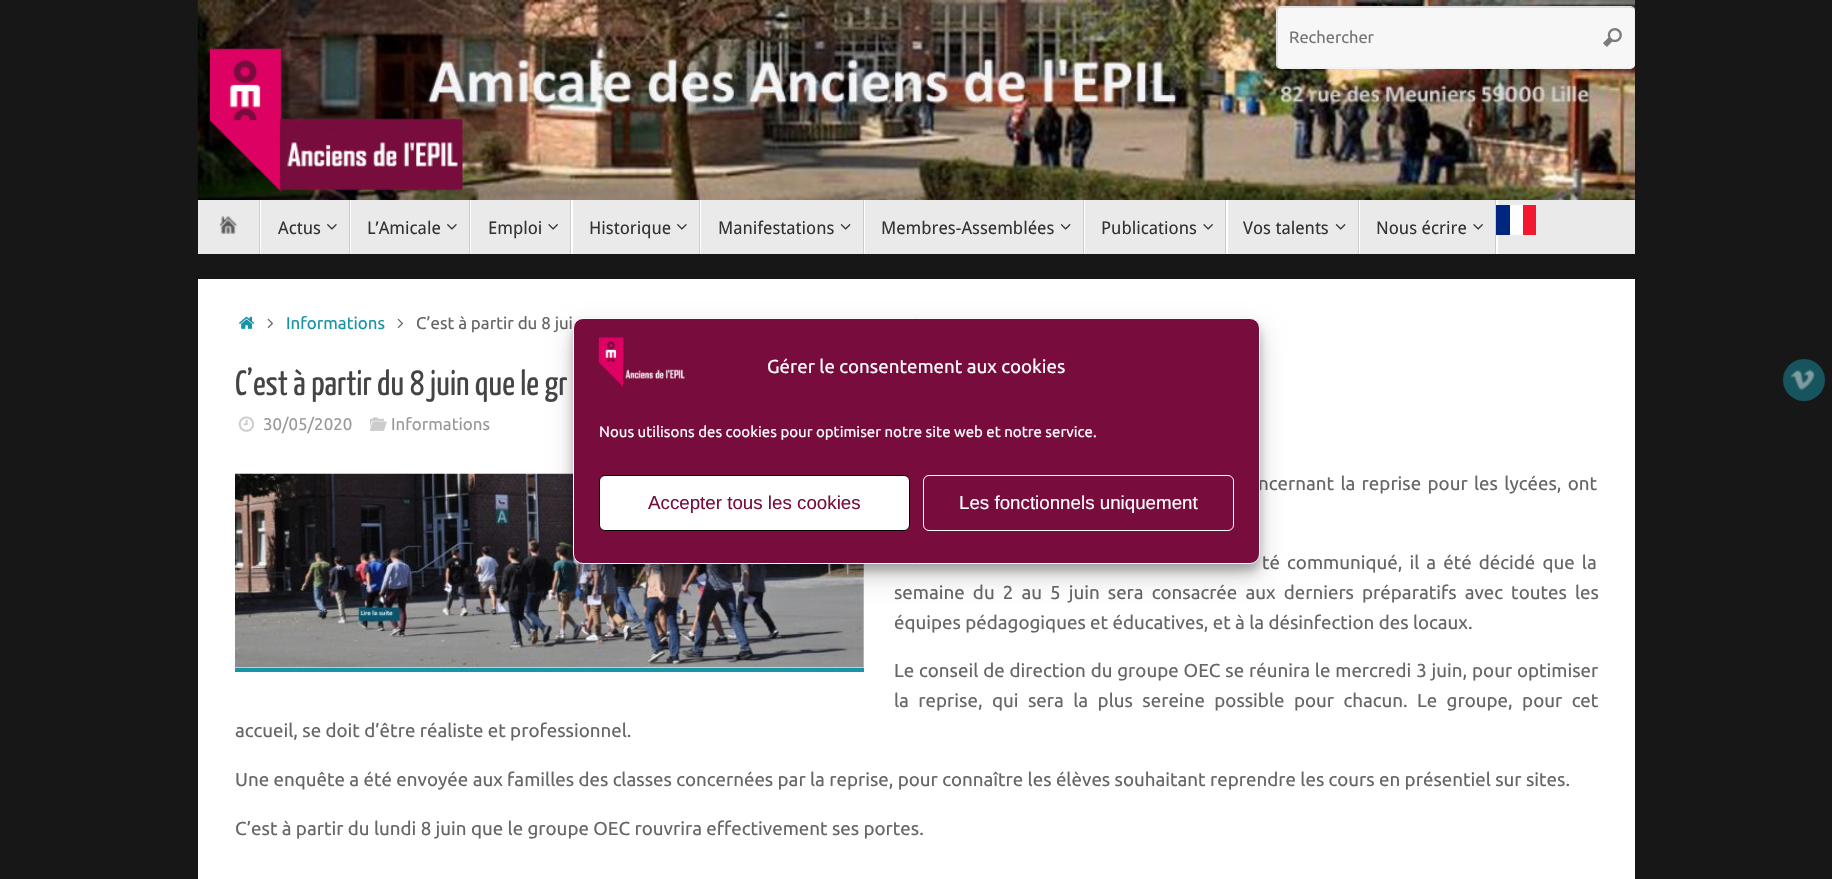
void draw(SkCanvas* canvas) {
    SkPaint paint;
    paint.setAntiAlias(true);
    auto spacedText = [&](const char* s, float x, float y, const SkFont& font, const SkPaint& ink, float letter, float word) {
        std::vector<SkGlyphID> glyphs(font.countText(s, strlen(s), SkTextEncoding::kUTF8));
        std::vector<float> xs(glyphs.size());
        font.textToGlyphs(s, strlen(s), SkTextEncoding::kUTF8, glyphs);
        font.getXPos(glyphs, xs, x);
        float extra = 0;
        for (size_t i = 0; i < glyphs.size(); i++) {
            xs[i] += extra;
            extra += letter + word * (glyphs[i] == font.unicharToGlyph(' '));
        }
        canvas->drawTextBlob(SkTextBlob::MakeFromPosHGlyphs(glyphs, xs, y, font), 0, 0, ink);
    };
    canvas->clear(0xFF171717);
    canvas->drawImageRect(SkImages::DeferredFromEncodedData(SkData::MakeFromFileName("img1.png")), SkRect::MakeXYWH(197, 0, 1438, 200), SkSamplingOptions());
    paint.setColor(0xFFF7F7F7);
    canvas->drawRoundRect(SkRect::MakeXYWH(1276, 6, 359, 63), 5, 5, paint);
    canvas->save();
    canvas->clipRect(SkRect::MakeXYWH(1276, 6, 359, 63));
    paint.setStyle(SkPaint::kStroke_Style);
    paint.setStrokeWidth(1.2f);
    paint.setColor(0xFFEEEEEE);
    canvas->drawPath(SkPathBuilder().moveTo(1633, 8).cubicTo(1636, 11, 1634.5f, 18, 1634.5f, 20).lineTo(1634.5f, 64).cubicTo(1634.5f, 66, 1632.5f, 68, 1630, 68).lineTo(1281, 68).lineTo(1278, 67).detach(), paint);
    canvas->restore();
    paint.setColor(0xFFCCCCCC);
    canvas->drawPath(SkPathBuilder().moveTo(1278, 67).cubicTo(1275.5f, 64, 1277, 57, 1277, 55).lineTo(1277, 11.5f).cubicTo(1277, 9, 1279, 7, 1281, 7).lineTo(1630.5f, 7).lineTo(1633, 8).detach(), paint);
    SkFont font1(fontMgr->matchFamilyStyle("Ubuntu", SkFontStyle::Normal()), 16.5f);
    font1.setSubpixel(true);
    paint.setStyle(SkPaint::kFill_Style);
    paint.setColor(0xFF757575);
    canvas->drawString("Rechercher", 1289, 43, font1, paint);
    canvas->drawImageRect(SkImages::DeferredFromEncodedData(SkData::MakeFromFileName("img2.png")), SkRect::MakeXYWH(1603, 28, 19, 19), SkSamplingOptions());
    canvas->drawImageRect(SkImages::DeferredFromEncodedData(SkData::MakeFromFileName("img3.png")), SkRect::MakeXYWH(210, 48, 253, 144), SkSamplingOptions());
    paint.setColor(0xFFEAEAEA);
    canvas->drawRect(SkRect::MakeXYWH(198, 200, 1437, 54), paint);
    paint.setColor(0xFFFFFFFF);
    canvas->drawPath(SkPathBuilder().moveTo(199, 254).lineTo(261, 254).lineTo(261, 200).lineTo(260, 200).lineTo(260, 254).close().detach(), paint);
    paint.setColor(0xFFCCCCCC);
    canvas->drawRect(SkRect::MakeXYWH(259, 200, 1, 54), paint);
    canvas->drawImageRect(SkImages::DeferredFromEncodedData(SkData::MakeFromFileName("img4.png")), SkRect::MakeXYWH(219, 216, 19, 18), SkSamplingOptions());
    paint.setColor(0xFFFFFFFF);
    canvas->drawPath(SkPathBuilder().moveTo(261, 254).lineTo(351, 254).lineTo(351, 200).lineTo(350, 200).lineTo(350, 254).close().detach(), paint);
    paint.setColor(0xFFCCCCCC);
    canvas->drawRect(SkRect::MakeXYWH(349, 200, 1, 54), paint);
    SkFont font2(fontMgr->matchFamilyStyle("Droid Sans", SkFontStyle::Normal()), 17.5f);
    font2.setSubpixel(true);
    paint.setColor(0xFF333333);
    canvas->drawString("Actus", 278, 234, font2, paint);
    canvas->drawImageRect(SkImages::DeferredFromEncodedData(SkData::MakeFromFileName("img5.png")), SkRect::MakeXYWH(327, 224, 10, 6), SkSamplingOptions());
    paint.setColor(0xFFFFFFFF);
    canvas->drawPath(SkPathBuilder().moveTo(351, 254).lineTo(471, 254).lineTo(471, 200).lineTo(470, 200).lineTo(470, 254).close().detach(), paint);
    paint.setColor(0xFFCCCCCC);
    canvas->drawRect(SkRect::MakeXYWH(469, 200, 1, 54), paint);
    paint.setColor(0xFF333333);
    canvas->drawString("L’Amicale", 367, 234, font2, paint);
    canvas->drawImageRect(SkImages::DeferredFromEncodedData(SkData::MakeFromFileName("img5.png")), SkRect::MakeXYWH(447, 224, 10, 6), SkSamplingOptions());
    paint.setColor(0xFFFFFFFF);
    canvas->drawPath(SkPathBuilder().moveTo(471, 254).lineTo(573, 254).lineTo(573, 200).lineTo(571, 200).lineTo(571, 254).close().detach(), paint);
    paint.setColor(0xFFCCCCCC);
    canvas->drawRect(SkRect::MakeXYWH(570, 200, 1, 54), paint);
    paint.setColor(0xFF333333);
    canvas->drawString("Emploi", 488, 234, font2, paint);
    canvas->drawImageRect(SkImages::DeferredFromEncodedData(SkData::MakeFromFileName("img6.png")), SkRect::MakeXYWH(548, 224, 10, 6), SkSamplingOptions());
    paint.setColor(0xFFFFFFFF);
    canvas->drawPath(SkPathBuilder().moveTo(573, 254).lineTo(701, 254).lineTo(701, 200).lineTo(700, 200).lineTo(700, 254).close().detach(), paint);
    paint.setColor(0xFFCCCCCC);
    canvas->drawRect(SkRect::MakeXYWH(699, 200, 1, 54), paint);
    paint.setColor(0xFF333333);
    canvas->drawString("Historique", 589, 234, font2, paint);
    canvas->drawImageRect(SkImages::DeferredFromEncodedData(SkData::MakeFromFileName("img5.png")), SkRect::MakeXYWH(677, 224, 10, 6), SkSamplingOptions());
    paint.setColor(0xFFFFFFFF);
    canvas->drawPath(SkPathBuilder().moveTo(701, 254).lineTo(865, 254).lineTo(865, 200).lineTo(864, 200).lineTo(864, 254).close().detach(), paint);
    paint.setColor(0xFFCCCCCC);
    canvas->drawRect(SkRect::MakeXYWH(863, 200, 1, 54), paint);
    paint.setColor(0xFF333333);
    canvas->drawString("Manifestations", 718, 234, font2, paint);
    canvas->drawImageRect(SkImages::DeferredFromEncodedData(SkData::MakeFromFileName("img7.png")), SkRect::MakeXYWH(840, 224, 11, 6), SkSamplingOptions());
    paint.setColor(0xFFFFFFFF);
    canvas->drawPath(SkPathBuilder().moveTo(865, 254).lineTo(1085, 254).lineTo(1085, 200).lineTo(1084, 200).lineTo(1084, 254).close().detach(), paint);
    paint.setColor(0xFFCCCCCC);
    canvas->drawRect(SkRect::MakeXYWH(1083, 200, 1, 54), paint);
    paint.setColor(0xFF333333);
    canvas->drawString("Membres-Assemblées", 881, 234, font2, paint);
    canvas->drawImageRect(SkImages::DeferredFromEncodedData(SkData::MakeFromFileName("img7.png")), SkRect::MakeXYWH(1060, 224, 11, 6), SkSamplingOptions());
    paint.setColor(0xFFFFFFFF);
    canvas->drawPath(SkPathBuilder().moveTo(1085, 254).lineTo(1228, 254).lineTo(1228, 200).lineTo(1226, 200).lineTo(1226, 254).close().detach(), paint);
    paint.setColor(0xFFCCCCCC);
    canvas->drawRect(SkRect::MakeXYWH(1225, 200, 1, 54), paint);
    paint.setColor(0xFF333333);
    canvas->drawString("Publications", 1101, 234, font2, paint);
    canvas->drawImageRect(SkImages::DeferredFromEncodedData(SkData::MakeFromFileName("img6.png")), SkRect::MakeXYWH(1203, 224, 10, 6), SkSamplingOptions());
    paint.setColor(0xFFFFFFFF);
    canvas->drawPath(SkPathBuilder().moveTo(1228, 254).lineTo(1360, 254).lineTo(1360, 200).lineTo(1359, 200).lineTo(1359, 254).close().detach(), paint);
    paint.setColor(0xFFCCCCCC);
    canvas->drawRect(SkRect::MakeXYWH(1358, 200, 1, 54), paint);
    paint.setColor(0xFF333333);
    canvas->drawString("Vos talents", 1243, 234, font2, paint);
    canvas->drawImageRect(SkImages::DeferredFromEncodedData(SkData::MakeFromFileName("img7.png")), SkRect::MakeXYWH(1335, 224, 11, 6), SkSamplingOptions());
    paint.setColor(0xFFFFFFFF);
    canvas->drawPath(SkPathBuilder().moveTo(1360, 254).lineTo(1498, 254).lineTo(1498, 200).lineTo(1496, 200).lineTo(1496, 254).close().detach(), paint);
    paint.setColor(0xFFCCCCCC);
    canvas->drawRect(SkRect::MakeXYWH(1495, 200, 1, 54), paint);
    paint.setColor(0xFF333333);
    canvas->drawString("Nous écrire", 1376, 234, font2, paint);
    canvas->drawImageRect(SkImages::DeferredFromEncodedData(SkData::MakeFromFileName("img6.png")), SkRect::MakeXYWH(1473, 224, 10, 6), SkSamplingOptions());
    paint.setColor(0xFF00267F);
    canvas->drawRect(SkRect::MakeXYWH(1496, 205, 14, 30), paint);
    paint.setColor(0xFFFFFFFF);
    canvas->drawRect(SkRect::MakeXYWH(1510, 205, 13, 30), paint);
    paint.setColor(0xFFF31830);
    canvas->drawRect(SkRect::MakeXYWH(1523, 205, 13, 30), paint);
    paint.setColor(0xFFFFFFFF);
    canvas->drawRect(SkRect::MakeXYWH(198, 279, 1437, 600), paint);
    canvas->drawImageRect(SkImages::DeferredFromEncodedData(SkData::MakeFromFileName("img8.png")), SkRect::MakeXYWH(239, 316, 16, 13), SkSamplingOptions());
    canvas->drawImageRect(SkImages::DeferredFromEncodedData(SkData::MakeFromFileName("img9.png")), SkRect::MakeXYWH(267, 318, 6, 11), SkSamplingOptions());
    SkFont font3(fontMgr->matchFamilyStyle("Ubuntu", SkFontStyle::Normal()), 16.9f);
    font3.setSubpixel(true);
    paint.setColor(0xFF1693A5);
    canvas->drawString("Informations", 286, 329, font3, paint);
    canvas->drawImageRect(SkImages::DeferredFromEncodedData(SkData::MakeFromFileName("img9.png")), SkRect::MakeXYWH(397, 318, 6, 11), SkSamplingOptions());
    paint.setColor(0xFF666666);
    canvas->drawString("C’est à partir du 8 jui", 416, 329, font3, paint);
    SkFont font4(fontMgr->matchFamilyStyle("Yanone Kaffeesatz", SkFontStyle::Normal()), 35);
    font4.setSubpixel(true);
    paint.setColor(0xFF444444);
    canvas->drawString("C’est à partir du 8 juin que le gr", 235, 395, font4, paint);
    canvas->drawImageRect(SkImages::DeferredFromEncodedData(SkData::MakeFromFileName("img10.png")), SkRect::MakeXYWH(238, 416, 16, 16), SkSamplingOptions());
    paint.setColor(0xFF999999);
    canvas->drawString("30/05/2020", 263, 430, font3, paint);
    canvas->drawImageRect(SkImages::DeferredFromEncodedData(SkData::MakeFromFileName("img11.png")), SkRect::MakeXYWH(370, 417, 17, 14), SkSamplingOptions());
    canvas->drawString("Informations", 391, 430, font3, paint);
    paint.setColor(0xFF1894A6);
    canvas->drawRect(SkRect::MakeXYWH(235, 668, 629, 4), paint);
    canvas->drawImageRect(SkImages::DeferredFromEncodedData(SkData::MakeFromFileName("img12.png")), SkRect::MakeXYWH(235, 473, 629, 195), SkSamplingOptions());
    SkFont font5(fontMgr->matchFamilyStyle("Ubuntu", SkFontStyle::Normal()), 18.75f);
    font5.setSubpixel(true);
    paint.setColor(0xFF666666);
    spacedText("ncernant la reprise pour les lycées, ont", 1258, 490, font5, paint, 0, 2);
    spacedText("té communiqué, il a été décidé que la", 1262, 569, font5, paint, 0, 2.75f);
    spacedText("semaine du 2 au 5 juin sera consacrée aux derniers préparatifs avec toutes les", 894, 599, font5, paint, 0, 3.75f);
    canvas->drawString("équipes pédagogiques et éducatives, et à la désinfection des locaux.", 894, 629, font5, paint);
    spacedText("Le conseil de direction du groupe OEC se réunira le mercredi 3 juin, pour optimiser", 894, 677, font5, paint, 0, 0.5f);
    spacedText("la reprise, qui sera la plus sereine possible pour chacun. Le groupe, pour cet", 894, 707, font5, paint, 0, 5.1f);
    canvas->drawString("accueil, se doit d’être réaliste et professionnel.", 235, 737, font5, paint);
    canvas->drawString("Une enquête a été envoyée aux familles des classes concernées par la reprise, pour connaître les élèves souhaitant reprendre les cours en présentiel sur sites.", 235, 786, font5, paint);
    canvas->drawString("C’est à partir du lundi 8 juin que le groupe OEC rouvrira effectivement ses portes.", 235, 835, font5, paint);
    paint.setColor(0xFF17555E);
    canvas->drawCircle(1804, 380, 21, paint);
    canvas->drawImageRect(SkImages::DeferredFromEncodedData(SkData::MakeFromFileName("img13.png")), SkRect::MakeXYWH(1790, 369, 25, 22), SkSamplingOptions());
    paint.setColor(0x3B000000);
    paint.setMaskFilter(SkMaskFilter::MakeBlur(kNormal_SkBlurStyle, 4));
    canvas->drawRoundRect(SkRect::MakeXYWH(573, 325, 687, 246), 10, 10, paint);
    paint.setMaskFilter(nullptr);
    paint.setColor(0x30000000);
    paint.setMaskFilter(SkMaskFilter::MakeBlur(kNormal_SkBlurStyle, 12.5f));
    canvas->drawRoundRect(SkRect::MakeXYWH(573, 330, 687, 246), 10, 10, paint);
    paint.setMaskFilter(nullptr);
    paint.setColor(0xFF770C3D);
    canvas->drawRoundRect(SkRect::MakeXYWH(573.5f, 318.5f, 686, 245), 9.5f, 9.5f, paint);
    paint.setStyle(SkPaint::kStroke_Style);
    paint.setStrokeWidth(1);
    paint.setColor(0xFFFFFFFF);
    canvas->drawRoundRect(SkRect::MakeXYWH(573.5f, 318.5f, 686, 245), 9.5f, 9.5f, paint);
    canvas->drawImageRect(SkImages::DeferredFromEncodedData(SkData::MakeFromFileName("img14.png")), SkRect::MakeXYWH(598, 336, 87, 51), SkSamplingOptions());
    paint.setStyle(SkPaint::kFill_Style);
    canvas->drawString("Gérer le consentement aux cookies", 767, 373, font5, paint);
    SkFont font6(fontMgr->matchFamilyStyle("Ubuntu", SkFontStyle::Normal()), 15);
    font6.setSubpixel(true);
    canvas->drawString("Nous utilisons des cookies pour optimiser notre site web et notre service.", 599, 437, font6, paint);
    canvas->drawRoundRect(SkRect::MakeXYWH(599.5f, 475.5f, 310, 55), 5.5f, 5.5f, paint);
    paint.setStyle(SkPaint::kStroke_Style);
    paint.setColor(0xFF000000);
    canvas->drawRoundRect(SkRect::MakeXYWH(599.5f, 475.5f, 310, 55), 5.5f, 5.5f, paint);
    SkFont font7(fontMgr->matchFamilyStyle("Liberation Sans", SkFontStyle::Normal()), 18.75f);
    font7.setSubpixel(true);
    paint.setStyle(SkPaint::kFill_Style);
    paint.setColor(0xFF770C3D);
    canvas->drawString("Accepter tous les cookies", 648, 509, font7, paint);
    paint.setStyle(SkPaint::kStroke_Style);
    paint.setColor(0xFFFFFFFF);
    canvas->drawRoundRect(SkRect::MakeXYWH(923.5f, 475.5f, 310, 55), 5.5f, 5.5f, paint);
    paint.setStyle(SkPaint::kFill_Style);
    canvas->drawString("Les fonctionnels uniquement", 959, 509, font7, paint);
}
